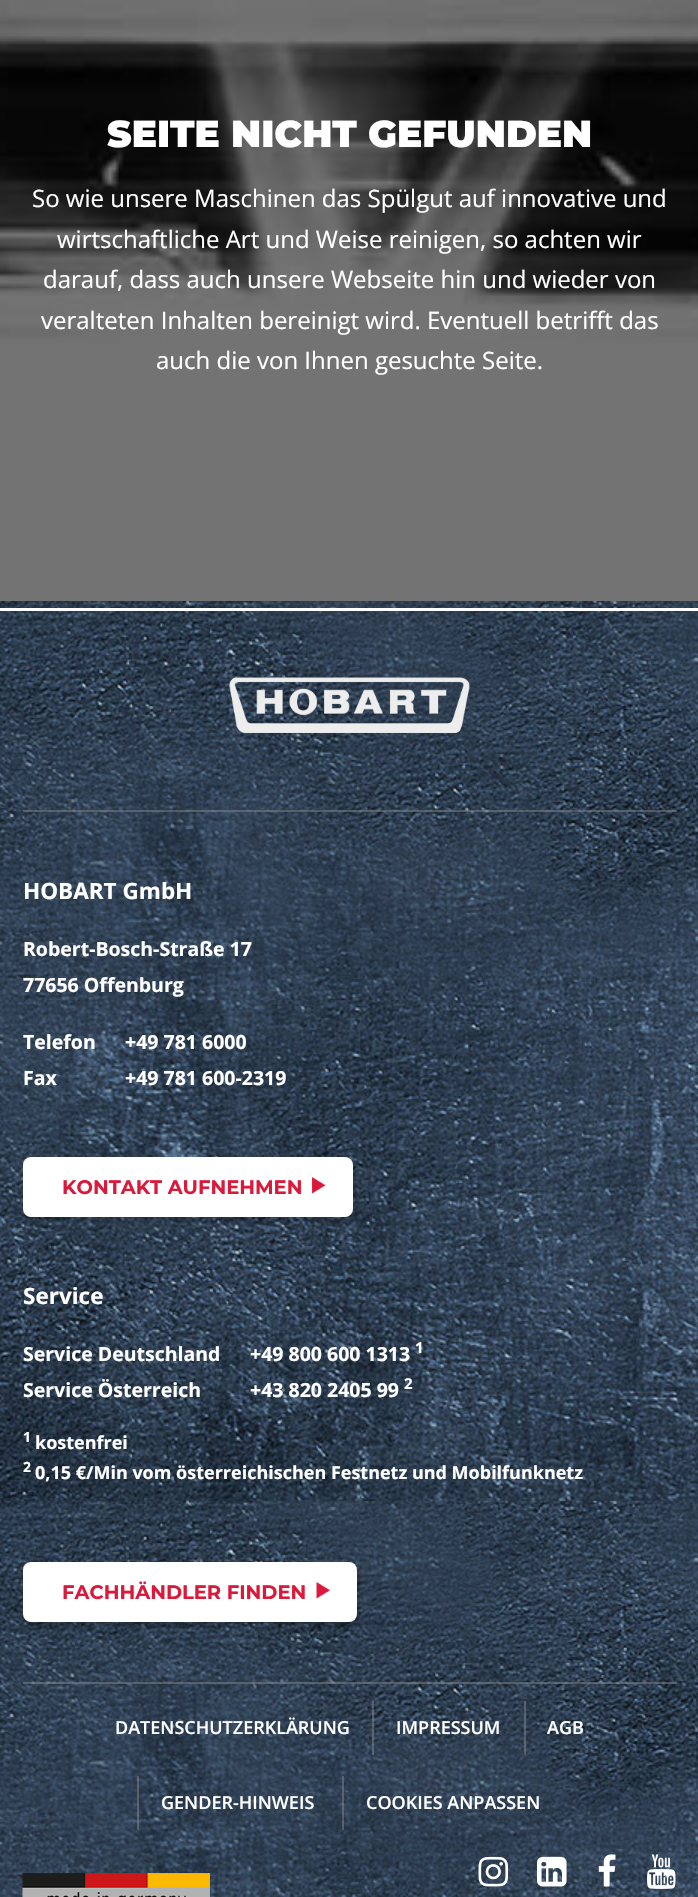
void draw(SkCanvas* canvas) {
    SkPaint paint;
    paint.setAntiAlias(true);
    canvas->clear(0xFFFFFFFF);
    canvas->drawImageRect(SkImages::DeferredFromEncodedData(SkData::MakeFromFileName("img1.png")), SkRect::MakeXYWH(0, 0, 698, 601), SkSamplingOptions());
    SkFont font1(fontMgr->matchFamilyStyle("Montserrat", SkFontStyle(900, SkFontStyle::kNormal_Width, SkFontStyle::kUpright_Slant)), 37.5f);
    font1.setSubpixel(true);
    paint.setColor(0xFFFFFFFF);
    canvas->drawString("SEITE NICHT GEFUNDEN", 107, 147, font1, paint);
    SkFont font2(fontMgr->matchFamilyStyle("Open Sans", SkFontStyle::Normal()), 24);
    font2.setSubpixel(true);
    canvas->drawString("So wie unsere Maschinen das Spülgut auf innovative und", 32, 207, font2, paint);
    canvas->drawString("wirtschaftliche Art und Weise reinigen, so achten wir", 57, 248, font2, paint);
    canvas->drawString("darauf, dass auch unsere Webseite hin und wieder von", 43, 288, font2, paint);
    canvas->drawString("veralteten Inhalten bereinigt wird. Eventuell betrifft das", 41, 329, font2, paint);
    canvas->drawString("auch die von Ihnen gesuchte Seite.", 156, 369, font2, paint);
    canvas->drawImageRect(SkImages::DeferredFromEncodedData(SkData::MakeFromFileName("img2.png")), SkRect::MakeXYWH(0, 601, 698, 1296), SkSamplingOptions());
    canvas->drawRect(SkRect::MakeXYWH(0, 608, 698, 3), paint);
    paint.setColor(0x8084888B);
    canvas->drawRect(SkRect::MakeXYWH(23, 810, 654, 2), paint);
    canvas->drawImageRect(SkImages::DeferredFromEncodedData(SkData::MakeFromFileName("img3.png")), SkRect::MakeXYWH(229, 677, 241, 56), SkSamplingOptions());
    SkFont font3(fontMgr->matchFamilyStyle("Open Sans", SkFontStyle::Bold()), 22.5f);
    font3.setSubpixel(true);
    paint.setColor(0xFFFFFFFF);
    canvas->drawString("HOBART GmbH", 23, 899, font3, paint);
    SkFont font4(fontMgr->matchFamilyStyle("Open Sans", SkFontStyle::Bold()), 19.5f);
    font4.setSubpixel(true);
    canvas->drawString("Robert-Bosch-Straße 17", 23, 956, font4, paint);
    canvas->drawString("77656 Offenburg", 23, 992, font4, paint);
    canvas->drawString("Telefon", 23, 1049, font4, paint);
    canvas->drawString("+49 781 6000", 125, 1049, font4, paint);
    canvas->drawString("Fax", 23, 1085, font4, paint);
    canvas->drawString("+49 781 600-2319", 125, 1085, font4, paint);
    paint.setColor(0x2B000000);
    paint.setMaskFilter(SkMaskFilter::MakeBlur(kNormal_SkBlurStyle, 2));
    canvas->drawRoundRect(SkRect::MakeXYWH(26, 1163, 330, 60), 8, 8, paint);
    paint.setMaskFilter(nullptr);
    paint.setColor(0xFFFFFFFF);
    canvas->drawRoundRect(SkRect::MakeXYWH(23, 1157, 330, 60), 8, 8, paint);
    SkFont font5(fontMgr->matchFamilyStyle("Montserrat", SkFontStyle::Bold()), 19.5f);
    font5.setSubpixel(true);
    paint.setColor(0xFFDA193B);
    canvas->drawString("KONTAKT AUFNEHMEN", 62, 1194, font5, paint);
    canvas->drawImageRect(SkImages::DeferredFromEncodedData(SkData::MakeFromFileName("img4.png")), SkRect::MakeXYWH(312, 1177, 14, 17), SkSamplingOptions());
    paint.setColor(0xFFFFFFFF);
    canvas->drawString("Service", 23, 1304, font3, paint);
    canvas->drawString("Service Deutschland", 23, 1361, font4, paint);
    canvas->drawString("+49 800 600 1313", 250, 1361, font4, paint);
    SkFont font6(fontMgr->matchFamilyStyle("Open Sans", SkFontStyle::Bold()), 15);
    font6.setSubpixel(true);
    canvas->drawString("1", 415, 1353, font6, paint);
    canvas->drawString("Service Österreich", 23, 1397, font4, paint);
    canvas->drawString("+43 820 2405 99", 250, 1397, font4, paint);
    canvas->drawString("2", 404, 1389, font6, paint);
    SkFont font7(fontMgr->matchFamilyStyle("Open Sans", SkFontStyle::Bold()), 14);
    font7.setSubpixel(true);
    canvas->drawString("1", 23, 1442, font7, paint);
    SkFont font8(fontMgr->matchFamilyStyle("Open Sans", SkFontStyle::Bold()), 18);
    font8.setSubpixel(true);
    canvas->drawString("kostenfrei", 35, 1449, font8, paint);
    canvas->drawString("2", 23, 1472, font7, paint);
    canvas->drawString("0,15 €/Min vom österreichischen Festnetz und Mobilfunknetz", 35, 1479, font8, paint);
    paint.setColor(0x2B000000);
    paint.setMaskFilter(SkMaskFilter::MakeBlur(kNormal_SkBlurStyle, 2));
    canvas->drawRoundRect(SkRect::MakeXYWH(26, 1568, 334, 60), 8, 8, paint);
    paint.setMaskFilter(nullptr);
    paint.setColor(0xFFFFFFFF);
    canvas->drawRoundRect(SkRect::MakeXYWH(23, 1562, 334, 60), 8, 8, paint);
    paint.setColor(0xFFDA193B);
    canvas->drawString("FACHHÄNDLER FINDEN", 62, 1599, font5, paint);
    canvas->drawImageRect(SkImages::DeferredFromEncodedData(SkData::MakeFromFileName("img5.png")), SkRect::MakeXYWH(316, 1582, 14, 17), SkSamplingOptions());
    paint.setColor(0x8084888B);
    canvas->drawRect(SkRect::MakeXYWH(23, 1682, 654, 2), paint);
    SkFont font9(fontMgr->matchFamilyStyle("Open Sans", SkFontStyle(600, SkFontStyle::kNormal_Width, SkFontStyle::kUpright_Slant)), 18);
    font9.setSubpixel(true);
    paint.setColor(0xFFFFFFFF);
    canvas->drawString("DATENSCHUTZERKLÄRUNG", 115, 1734, font9, paint);
    paint.setColor(0x8084888B);
    canvas->drawRect(SkRect::MakeXYWH(372, 1701, 2, 54), paint);
    paint.setColor(0xFFFFFFFF);
    canvas->drawString("IMPRESSUM", 396, 1734, font9, paint);
    paint.setColor(0x8084888B);
    canvas->drawRect(SkRect::MakeXYWH(524, 1701, 2, 54), paint);
    paint.setColor(0xFFFFFFFF);
    canvas->drawString("AGB", 547, 1734, font9, paint);
    paint.setColor(0x8084888B);
    canvas->drawRect(SkRect::MakeXYWH(137, 1776, 2, 54), paint);
    paint.setColor(0xFFFFFFFF);
    canvas->drawString("GENDER-HINWEIS", 161, 1809, font9, paint);
    paint.setColor(0x8084888B);
    canvas->drawRect(SkRect::MakeXYWH(342, 1776, 2, 54), paint);
    paint.setColor(0xFFFFFFFF);
    canvas->drawString("COOKIES ANPASSEN", 366, 1809, font9, paint);
    canvas->drawImageRect(SkImages::DeferredFromEncodedData(SkData::MakeFromFileName("img6.png")), SkRect::MakeXYWH(22, 1873, 188, 24), SkSamplingOptions());
    canvas->drawImageRect(SkImages::DeferredFromEncodedData(SkData::MakeFromFileName("img7.png")), SkRect::MakeXYWH(478, 1856, 31, 31), SkSamplingOptions());
    canvas->drawImageRect(SkImages::DeferredFromEncodedData(SkData::MakeFromFileName("img8.png")), SkRect::MakeXYWH(537, 1856, 30, 31), SkSamplingOptions());
    canvas->drawImageRect(SkImages::DeferredFromEncodedData(SkData::MakeFromFileName("img9.png")), SkRect::MakeXYWH(598, 1854, 18, 33), SkSamplingOptions());
    canvas->drawImageRect(SkImages::DeferredFromEncodedData(SkData::MakeFromFileName("img10.png")), SkRect::MakeXYWH(647, 1854, 29, 35), SkSamplingOptions());
}
